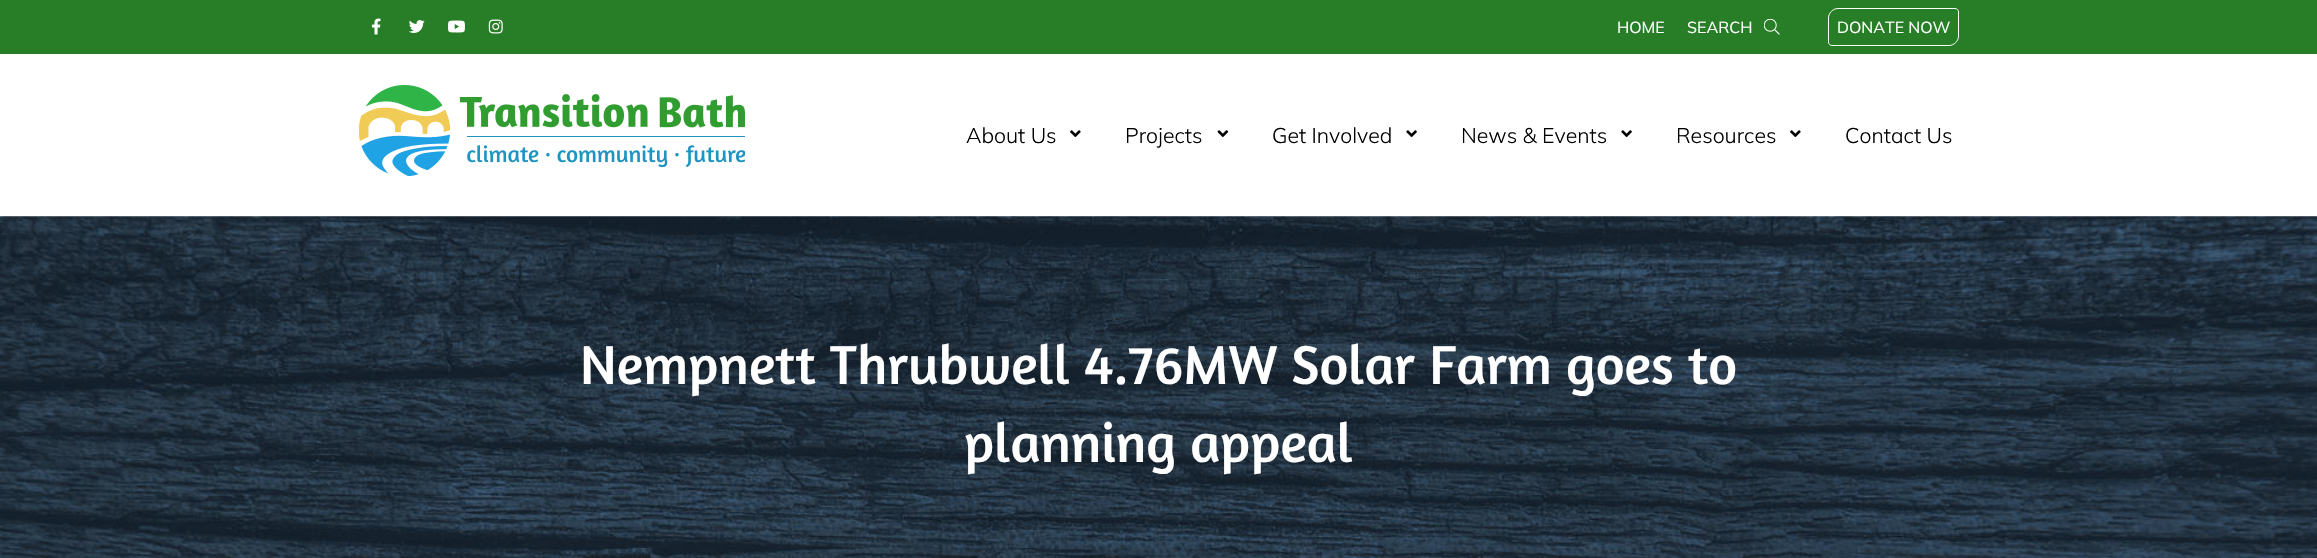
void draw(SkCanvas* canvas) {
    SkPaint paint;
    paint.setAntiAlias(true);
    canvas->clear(0xFFFFFFFF);
    paint.setColor(0xFF277E26);
    canvas->drawRect(SkRect::MakeXYWH(0, 0, 2317, 54), paint);
    canvas->drawImageRect(SkImages::DeferredFromEncodedData(SkData::MakeFromFileName("img1.png")), SkRect::MakeXYWH(371, 18, 10, 17), SkSamplingOptions());
    canvas->drawImageRect(SkImages::DeferredFromEncodedData(SkData::MakeFromFileName("img2.png")), SkRect::MakeXYWH(409, 20, 16, 13), SkSamplingOptions());
    canvas->drawImageRect(SkImages::DeferredFromEncodedData(SkData::MakeFromFileName("img3.png")), SkRect::MakeXYWH(447, 20, 18, 13), SkSamplingOptions());
    canvas->drawImageRect(SkImages::DeferredFromEncodedData(SkData::MakeFromFileName("img4.png")), SkRect::MakeXYWH(488, 19, 15, 15), SkSamplingOptions());
    SkFont font1(fontMgr->matchFamilyStyle("Mulish", SkFontStyle::Normal()), 16);
    font1.setSubpixel(true);
    paint.setColor(0xFFFFFFFF);
    canvas->drawString("HOME", 1617, 33, font1, paint);
    canvas->drawString("SEARCH", 1687, 33, font1, paint);
    canvas->drawImageRect(SkImages::DeferredFromEncodedData(SkData::MakeFromFileName("img5.png")), SkRect::MakeXYWH(1764, 19, 16, 16), SkSamplingOptions());
    paint.setStyle(SkPaint::kStroke_Style);
    paint.setStrokeWidth(1);
    canvas->drawPath(SkPathBuilder().moveTo(1838, 8.5f).lineTo(1955, 8.5f).cubicTo(1957, 8.5f, 1958.5f, 10, 1958.5f, 12).lineTo(1958.5f, 36).cubicTo(1958.5f, 41, 1954, 45.5f, 1949, 45.5f).lineTo(1832, 45.5f).cubicTo(1830, 45.5f, 1828.5f, 44, 1828.5f, 42).lineTo(1828.5f, 18).cubicTo(1828.5f, 13, 1833, 8.5f, 1838, 8.5f).close().detach(), paint);
    paint.setStyle(SkPaint::kFill_Style);
    canvas->drawString("DONATE NOW", 1837, 33, font1, paint);
    canvas->drawImageRect(SkImages::DeferredFromEncodedData(SkData::MakeFromFileName("img6.png")), SkRect::MakeXYWH(359, 85, 386, 91), SkSamplingOptions());
    SkFont font2(fontMgr->matchFamilyStyle("Mulish", SkFontStyle(300, SkFontStyle::kNormal_Width, SkFontStyle::kUpright_Slant)), 21.25f);
    font2.setSubpixel(true);
    paint.setColor(0xFF000000);
    canvas->drawString("About Us", 966, 143, font2, paint);
    canvas->drawImageRect(SkImages::DeferredFromEncodedData(SkData::MakeFromFileName("img7.png")), SkRect::MakeXYWH(1070, 130, 11, 7), SkSamplingOptions());
    canvas->drawString("Projects", 1125, 143, font2, paint);
    canvas->drawImageRect(SkImages::DeferredFromEncodedData(SkData::MakeFromFileName("img8.png")), SkRect::MakeXYWH(1217, 130, 12, 7), SkSamplingOptions());
    canvas->drawString("Get Involved", 1272, 143, font2, paint);
    canvas->drawImageRect(SkImages::DeferredFromEncodedData(SkData::MakeFromFileName("img9.png")), SkRect::MakeXYWH(1406, 130, 11, 7), SkSamplingOptions());
    canvas->drawString("News & Events", 1461, 143, font2, paint);
    canvas->drawImageRect(SkImages::DeferredFromEncodedData(SkData::MakeFromFileName("img9.png")), SkRect::MakeXYWH(1621, 130, 11, 7), SkSamplingOptions());
    canvas->drawString("Resources", 1676, 143, font2, paint);
    canvas->drawImageRect(SkImages::DeferredFromEncodedData(SkData::MakeFromFileName("img7.png")), SkRect::MakeXYWH(1790, 130, 11, 7), SkSamplingOptions());
    canvas->drawString("Contact Us", 1845, 143, font2, paint);
    canvas->drawImageRect(SkImages::DeferredFromEncodedData(SkData::MakeFromFileName("img10.png")), SkRect::MakeXYWH(0, 216, 2317, 342), SkSamplingOptions());
    SkFont font3(fontMgr->matchFamilyStyle("Amaranth", SkFontStyle::Normal()), 55.75f);
    font3.setSubpixel(true);
    paint.setColor(0xFFFFFFFF);
    canvas->drawString("Nempnett Thrubwell 4.76MW Solar Farm goes to", 580, 384, font3, paint);
    canvas->drawString("planning appeal", 964, 462, font3, paint);
}
